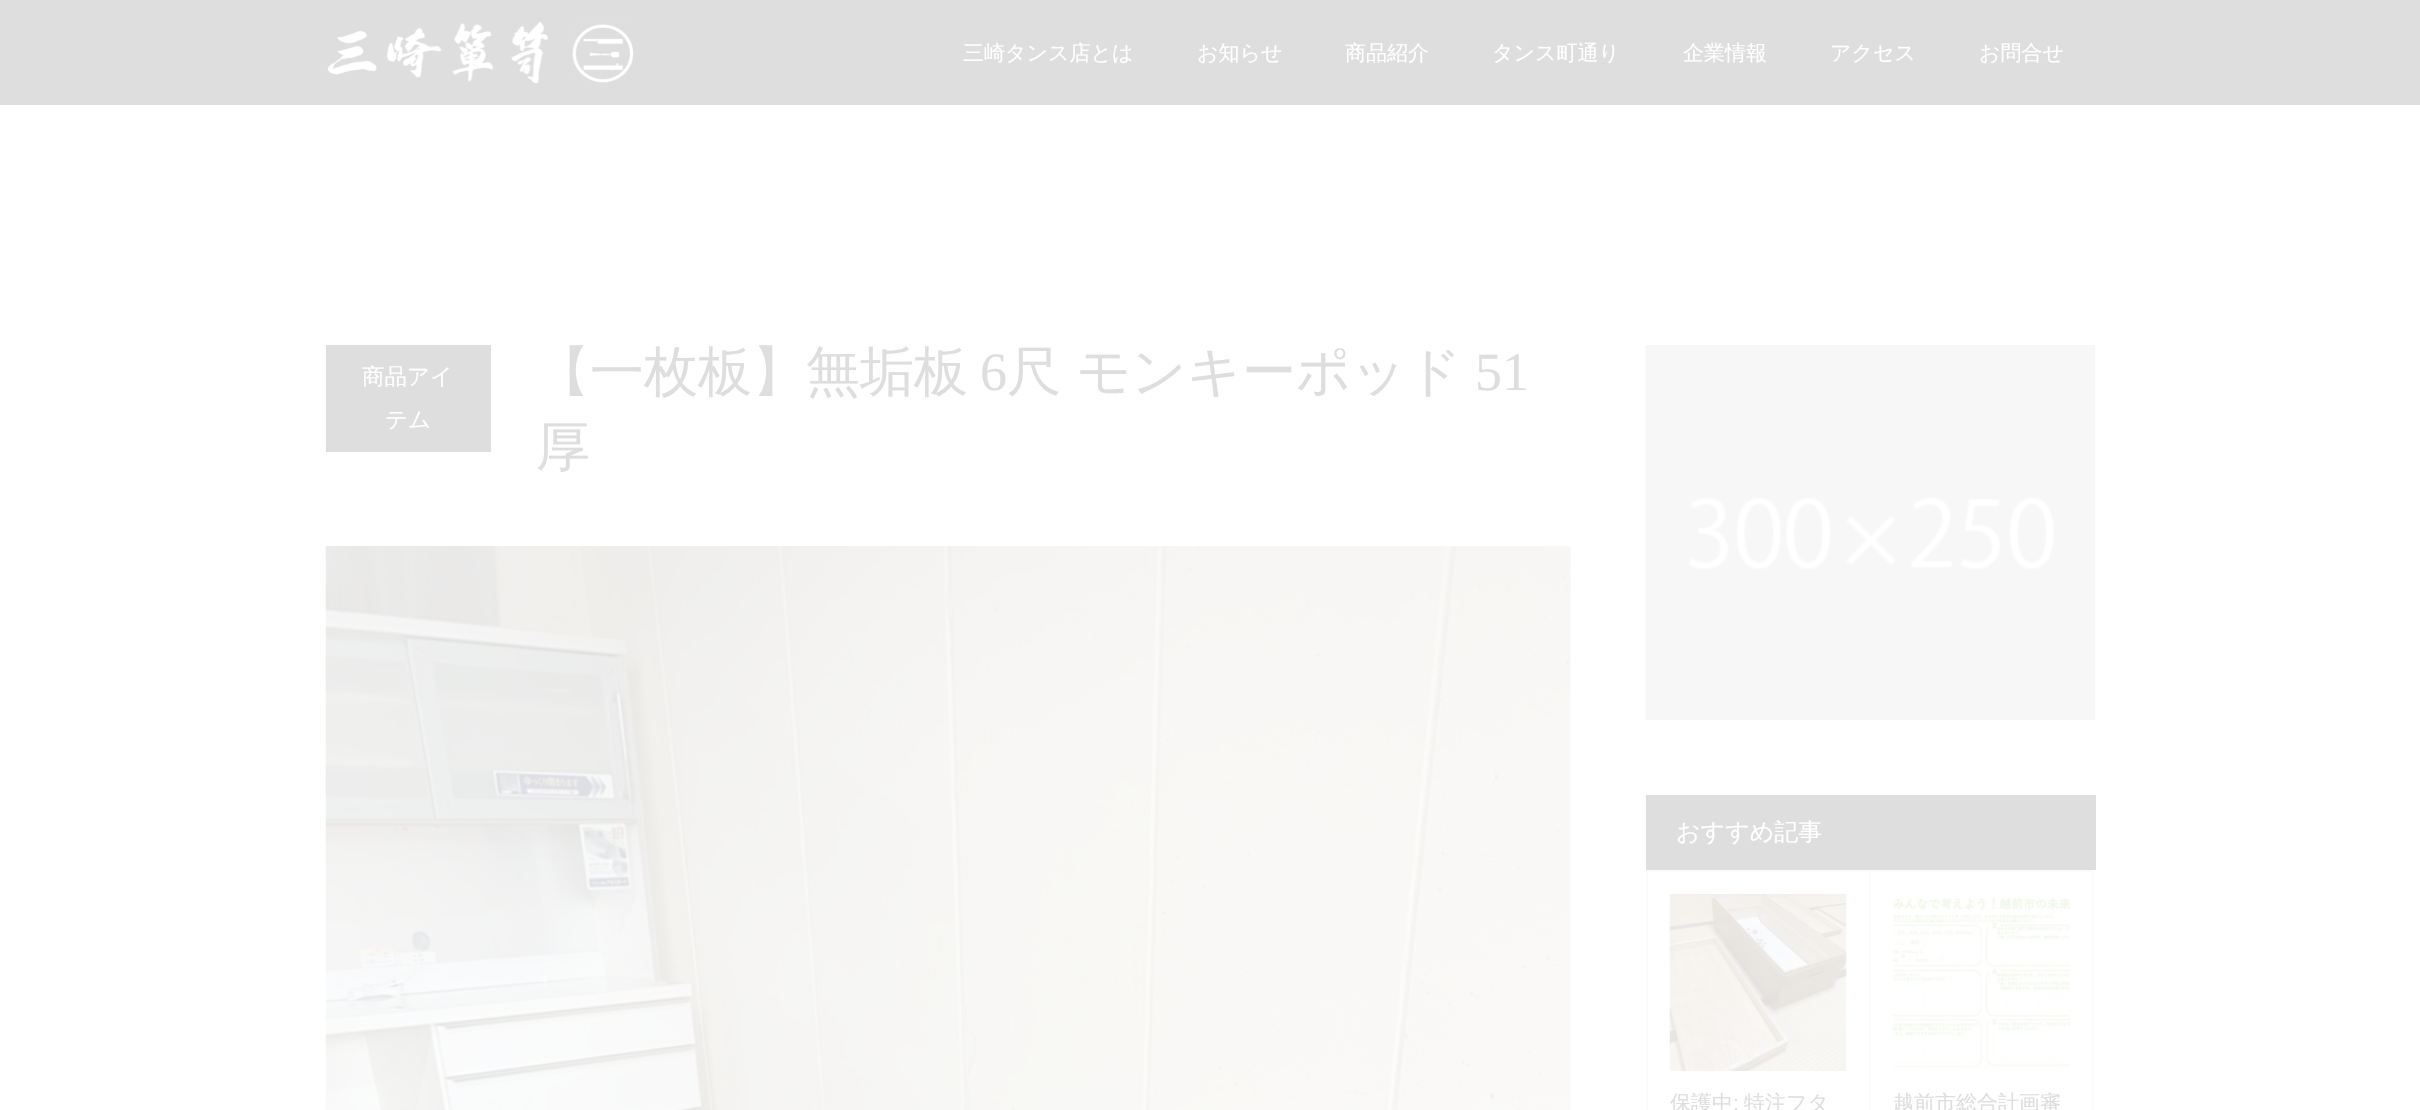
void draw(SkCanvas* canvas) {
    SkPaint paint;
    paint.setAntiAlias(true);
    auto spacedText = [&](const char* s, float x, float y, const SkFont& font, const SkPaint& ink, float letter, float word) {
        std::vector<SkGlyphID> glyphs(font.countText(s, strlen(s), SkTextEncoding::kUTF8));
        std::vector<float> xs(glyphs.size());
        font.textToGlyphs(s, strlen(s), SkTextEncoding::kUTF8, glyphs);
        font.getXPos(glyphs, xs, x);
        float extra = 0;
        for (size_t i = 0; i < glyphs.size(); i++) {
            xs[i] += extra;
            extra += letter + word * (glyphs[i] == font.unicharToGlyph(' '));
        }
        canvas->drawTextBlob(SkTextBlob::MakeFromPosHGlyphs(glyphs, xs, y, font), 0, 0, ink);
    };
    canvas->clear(0xFFFFFFFF);
    paint.setColor(0xFFDEDEDE);
    canvas->drawRect(SkRect::MakeXYWH(0, 0, 2420, 105), paint);
    canvas->drawImageRect(SkImages::DeferredFromEncodedData(SkData::MakeFromFileName("img1.png")), SkRect::MakeXYWH(327, 21, 307, 63), SkSamplingOptions());
    SkFont font1(fontMgr->matchFamilyStyle("WenQuanYi Zen Hei", SkFontStyle(500, SkFontStyle::kNormal_Width, SkFontStyle::kUpright_Slant)), 21);
    font1.setSubpixel(true);
    paint.setColor(0xFFFFFFFF);
    canvas->drawString("三崎タンス店とは", 963, 60, font1, paint);
    canvas->drawString("お知らせ", 1197, 60, font1, paint);
    canvas->drawString("商品紹介", 1345, 60, font1, paint);
    canvas->drawString("タンス町通り", 1492, 60, font1, paint);
    canvas->drawString("企業情報", 1683, 60, font1, paint);
    canvas->drawString("アクセス", 1830, 60, font1, paint);
    canvas->drawString("お問合せ", 1979, 60, font1, paint);
    paint.setColor(0xFFDEDEDE);
    canvas->drawRect(SkRect::MakeXYWH(326, 345, 165, 107), paint);
    SkFont font2(fontMgr->matchFamilyStyle("WenQuanYi Zen Hei", SkFontStyle(500, SkFontStyle::kNormal_Width, SkFontStyle::kUpright_Slant)), 22.5f);
    font2.setSubpixel(true);
    paint.setColor(0xFFFFFFFF);
    canvas->drawString("商品アイ", 362, 384, font2, paint);
    canvas->drawString("テム", 385, 427, font2, paint);
    SkFont font3(fontMgr->matchFamilyStyle("WenQuanYi Zen Hei", SkFontStyle(500, SkFontStyle::kNormal_Width, SkFontStyle::kUpright_Slant)), 54);
    font3.setSubpixel(true);
    paint.setColor(0xFFDEDEDE);
    canvas->drawString("【一枚板】無垢板", 536, 390, font3, paint);
    SkFont font4(fontMgr->matchFamilyStyle("Liberation Serif", SkFontStyle::Normal()), 54);
    font4.setSubpixel(true);
    canvas->drawString("6", 980, 390, font4, paint);
    spacedText("尺 モンキーポッド", 1007, 390, font3, paint, 0, -1);
    canvas->drawString("51", 1475, 390, font4, paint);
    canvas->drawString("厚", 536, 465, font3, paint);
    canvas->drawImageRect(SkImages::DeferredFromEncodedData(SkData::MakeFromFileName("img2.png")), SkRect::MakeXYWH(325, 546, 1246, 564), SkSamplingOptions());
    canvas->drawImageRect(SkImages::DeferredFromEncodedData(SkData::MakeFromFileName("img3.png")), SkRect::MakeXYWH(1645, 345, 451, 375), SkSamplingOptions());
    canvas->drawRect(SkRect::MakeXYWH(1646, 795, 450, 75), paint);
    SkFont font5(fontMgr->matchFamilyStyle("WenQuanYi Zen Hei", SkFontStyle(500, SkFontStyle::kNormal_Width, SkFontStyle::kUpright_Slant)), 24);
    font5.setSubpixel(true);
    paint.setColor(0xFFFFFFFF);
    canvas->drawString("おすすめ記事", 1676, 840, font5, paint);
    paint.setStyle(SkPaint::kStroke_Style);
    paint.setStrokeWidth(2);
    paint.setColor(0xFFFBFBFB);
    canvas->drawRect(SkRect::MakeXYWH(1647, 871, 223, 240), paint);
    canvas->drawImageRect(SkImages::DeferredFromEncodedData(SkData::MakeFromFileName("img4.png")), SkRect::MakeXYWH(1669, 894, 178, 177), SkSamplingOptions());
    paint.setStyle(SkPaint::kFill_Style);
    paint.setColor(0xFFDEDEDE);
    canvas->drawString("保護中", 1670, 1110, font1, paint);
    SkFont font6(fontMgr->matchFamilyStyle("Liberation Sans", SkFontStyle::Normal()), 21);
    font6.setSubpixel(true);
    canvas->drawString(":", 1733, 1110, font6, paint);
    canvas->drawString("特注フタ", 1744, 1110, font1, paint);
    paint.setStyle(SkPaint::kStroke_Style);
    paint.setColor(0xFFFBFBFB);
    canvas->drawRect(SkRect::MakeXYWH(1870, 871, 223, 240), paint);
    canvas->drawImageRect(SkImages::DeferredFromEncodedData(SkData::MakeFromFileName("img5.png")), SkRect::MakeXYWH(1893, 894, 177, 177), SkSamplingOptions());
    paint.setStyle(SkPaint::kFill_Style);
    paint.setColor(0xFFDEDEDE);
    canvas->drawString("越前市総合計画審", 1893, 1110, font1, paint);
}
